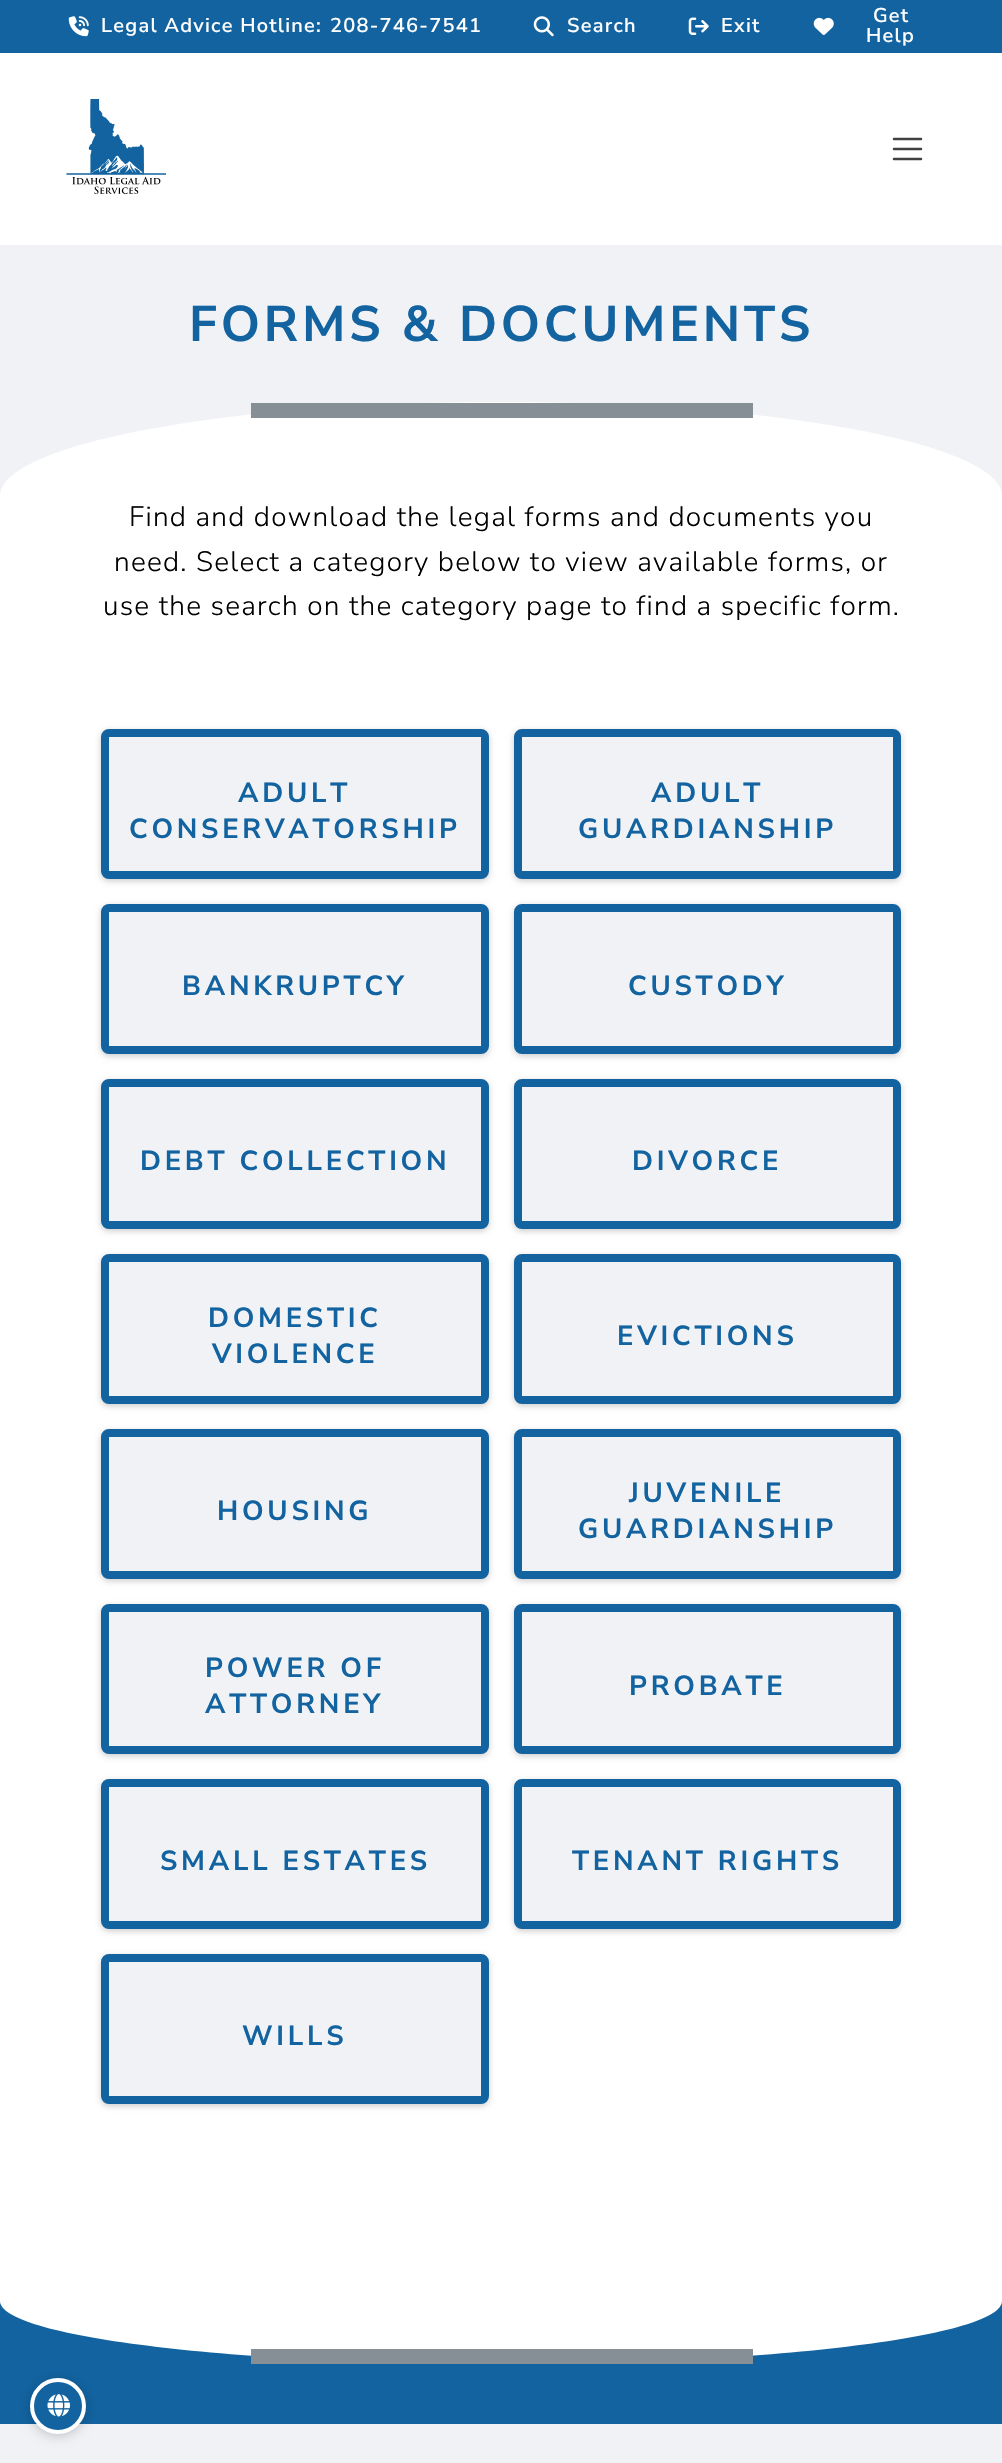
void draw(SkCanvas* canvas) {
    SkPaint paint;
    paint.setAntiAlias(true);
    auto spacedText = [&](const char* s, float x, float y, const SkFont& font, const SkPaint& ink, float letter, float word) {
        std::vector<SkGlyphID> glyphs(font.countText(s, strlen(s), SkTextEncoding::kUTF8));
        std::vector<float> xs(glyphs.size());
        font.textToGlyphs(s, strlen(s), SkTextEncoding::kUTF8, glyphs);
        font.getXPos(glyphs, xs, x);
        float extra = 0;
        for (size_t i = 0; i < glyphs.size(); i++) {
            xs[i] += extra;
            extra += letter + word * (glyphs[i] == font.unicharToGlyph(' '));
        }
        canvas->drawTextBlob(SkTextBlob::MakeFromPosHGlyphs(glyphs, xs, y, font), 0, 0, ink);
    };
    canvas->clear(0xFFFFFFFF);
    paint.setColor(0xFF1263A0);
    canvas->drawRect(SkRect::MakeXYWH(0, 0, 1002, 53), paint);
    canvas->drawImageRect(SkImages::DeferredFromEncodedData(SkData::MakeFromFileName("img1.png")), SkRect::MakeXYWH(68, 16, 21, 21), SkSamplingOptions());
    SkFont font1(fontMgr->matchFamilyStyle("Nunito Sans", SkFontStyle(600, SkFontStyle::kNormal_Width, SkFontStyle::kUpright_Slant)), 20);
    font1.setSubpixel(true);
    paint.setColor(0xFFFFFFFF);
    spacedText("Legal Advice Hotline:", 101, 32, font1, paint, 1.25f, 0);
    spacedText("208-746-7541", 330, 32, font1, paint, 1.25f, 0);
    canvas->drawImageRect(SkImages::DeferredFromEncodedData(SkData::MakeFromFileName("img2.png")), SkRect::MakeXYWH(533, 16, 21, 21), SkSamplingOptions());
    spacedText("Search", 567, 32, font1, paint, 1.25f, 0);
    canvas->drawImageRect(SkImages::DeferredFromEncodedData(SkData::MakeFromFileName("img3.png")), SkRect::MakeXYWH(688, 17, 21, 18), SkSamplingOptions());
    spacedText("Exit", 721, 32, font1, paint, 1.25f, 0);
    spacedText("Get", 873, 22, font1, paint, 1.25f, 0);
    canvas->drawImageRect(SkImages::DeferredFromEncodedData(SkData::MakeFromFileName("img4.png")), SkRect::MakeXYWH(813, 17, 21, 18), SkSamplingOptions());
    spacedText("Help", 866, 42, font1, paint, 1.25f, 0);
    canvas->drawImageRect(SkImages::DeferredFromEncodedData(SkData::MakeFromFileName("img5.png")), SkRect::MakeXYWH(66, 99, 100, 95), SkSamplingOptions());
    paint.setStyle(SkPaint::kStroke_Style);
    paint.setStrokeWidth(2.5f);
    paint.setStrokeCap(SkPaint::kRound_Cap);
    paint.setColor(0xFF404040);
    canvas->drawPath(SkPathBuilder().moveTo(894, 139).lineTo(921, 139).moveTo(894, 149).lineTo(921, 149).moveTo(894, 159).lineTo(921, 159).detach(), paint);
    paint.setStyle(SkPaint::kFill_Style);
    paint.setColor(0xFFF0F2F5);
    canvas->drawRect(SkRect::MakeXYWH(0, 245, 1002, 250), paint);
    SkFont font2(fontMgr->matchFamilyStyle("Nunito Sans", SkFontStyle::Bold()), 50);
    font2.setSubpixel(true);
    paint.setColor(0xFF1263A0);
    spacedText("FORMS & DOCUMENTS", 189, 341, font2, paint, 3.75f, 0);
    paint.setColor(0xFFFFFFFF);
    canvas->drawPath(SkPathBuilder().moveTo(501, 402).cubicTo(778, 402, 1002, 444, 1002, 496).lineTo(0, 496).cubicTo(0, 444, 224, 402, 501, 402).close().detach(), paint);
    paint.setColor(0xFF868E96);
    canvas->drawRect(SkRect::MakeXYWH(251, 403, 502, 15), paint);
    SkFont font3(fontMgr->matchFamilyStyle("Nunito Sans", SkFontStyle(300, SkFontStyle::kNormal_Width, SkFontStyle::kUpright_Slant)), 28);
    font3.setSubpixel(true);
    paint.setColor(0xFF000000);
    spacedText("Find and download the legal forms and documents you", 129, 526, font3, paint, 1.25f, 0);
    spacedText("need. Select a category below to view available forms, or", 114, 571, font3, paint, 1.25f, 0);
    spacedText("use the search on the category page to find a specific form.", 103, 615, font3, paint, 1.25f, 0);
    paint.setColor(0x33000000);
    paint.setMaskFilter(SkMaskFilter::MakeBlur(kNormal_SkBlurStyle, 3));
    canvas->drawRoundRect(SkRect::MakeXYWH(101, 731, 388, 150), 8, 8, paint);
    paint.setMaskFilter(nullptr);
    paint.setColor(0xFFF0F2F5);
    canvas->drawRoundRect(SkRect::MakeXYWH(105, 733, 380, 142), 4, 4, paint);
    paint.setStyle(SkPaint::kStroke_Style);
    paint.setStrokeWidth(8);
    paint.setStrokeCap(SkPaint::kButt_Cap);
    paint.setColor(0xFF1263A0);
    canvas->drawRoundRect(SkRect::MakeXYWH(105, 733, 380, 142), 4, 4, paint);
    SkFont font4(fontMgr->matchFamilyStyle("Nunito Sans", SkFontStyle::Bold()), 27.5f);
    font4.setSubpixel(true);
    paint.setStyle(SkPaint::kFill_Style);
    spacedText("ADULT", 238, 802, font4, paint, 3.75f, 0);
    spacedText("CONSERVATORSHIP", 129, 838, font4, paint, 3.75f, 0);
    paint.setColor(0x33000000);
    paint.setMaskFilter(SkMaskFilter::MakeBlur(kNormal_SkBlurStyle, 3));
    canvas->drawRoundRect(SkRect::MakeXYWH(514, 731, 387, 150), 8, 8, paint);
    paint.setMaskFilter(nullptr);
    paint.setColor(0xFFF0F2F5);
    canvas->drawRoundRect(SkRect::MakeXYWH(518, 733, 379, 142), 4, 4, paint);
    paint.setStyle(SkPaint::kStroke_Style);
    paint.setColor(0xFF1263A0);
    canvas->drawRoundRect(SkRect::MakeXYWH(518, 733, 379, 142), 4, 4, paint);
    paint.setStyle(SkPaint::kFill_Style);
    spacedText("ADULT", 651, 802, font4, paint, 3.75f, 0);
    spacedText("GUARDIANSHIP", 578, 838, font4, paint, 3.75f, 0);
    paint.setColor(0x33000000);
    paint.setMaskFilter(SkMaskFilter::MakeBlur(kNormal_SkBlurStyle, 3));
    canvas->drawRoundRect(SkRect::MakeXYWH(101, 906, 388, 150), 8, 8, paint);
    paint.setMaskFilter(nullptr);
    paint.setColor(0xFFF0F2F5);
    canvas->drawRoundRect(SkRect::MakeXYWH(105, 908, 380, 142), 4, 4, paint);
    paint.setStyle(SkPaint::kStroke_Style);
    paint.setColor(0xFF1263A0);
    canvas->drawRoundRect(SkRect::MakeXYWH(105, 908, 380, 142), 4, 4, paint);
    paint.setStyle(SkPaint::kFill_Style);
    spacedText("BANKRUPTCY", 182, 995, font4, paint, 3.75f, 0);
    paint.setColor(0x33000000);
    paint.setMaskFilter(SkMaskFilter::MakeBlur(kNormal_SkBlurStyle, 3));
    canvas->drawRoundRect(SkRect::MakeXYWH(514, 906, 387, 150), 8, 8, paint);
    paint.setMaskFilter(nullptr);
    paint.setColor(0xFFF0F2F5);
    canvas->drawRoundRect(SkRect::MakeXYWH(518, 908, 379, 142), 4, 4, paint);
    paint.setStyle(SkPaint::kStroke_Style);
    paint.setColor(0xFF1263A0);
    canvas->drawRoundRect(SkRect::MakeXYWH(518, 908, 379, 142), 4, 4, paint);
    paint.setStyle(SkPaint::kFill_Style);
    spacedText("CUSTODY", 628, 995, font4, paint, 3.75f, 0);
    paint.setColor(0x33000000);
    paint.setMaskFilter(SkMaskFilter::MakeBlur(kNormal_SkBlurStyle, 3));
    canvas->drawRoundRect(SkRect::MakeXYWH(101, 1081, 388, 150), 8, 8, paint);
    paint.setMaskFilter(nullptr);
    paint.setColor(0xFFF0F2F5);
    canvas->drawRoundRect(SkRect::MakeXYWH(105, 1083, 380, 142), 4, 4, paint);
    paint.setStyle(SkPaint::kStroke_Style);
    paint.setColor(0xFF1263A0);
    canvas->drawRoundRect(SkRect::MakeXYWH(105, 1083, 380, 142), 4, 4, paint);
    paint.setStyle(SkPaint::kFill_Style);
    spacedText("DEBT COLLECTION", 140, 1170, font4, paint, 3.75f, 0);
    paint.setColor(0x33000000);
    paint.setMaskFilter(SkMaskFilter::MakeBlur(kNormal_SkBlurStyle, 3));
    canvas->drawRoundRect(SkRect::MakeXYWH(514, 1081, 387, 150), 8, 8, paint);
    paint.setMaskFilter(nullptr);
    paint.setColor(0xFFF0F2F5);
    canvas->drawRoundRect(SkRect::MakeXYWH(518, 1083, 379, 142), 4, 4, paint);
    paint.setStyle(SkPaint::kStroke_Style);
    paint.setColor(0xFF1263A0);
    canvas->drawRoundRect(SkRect::MakeXYWH(518, 1083, 379, 142), 4, 4, paint);
    paint.setStyle(SkPaint::kFill_Style);
    spacedText("DIVORCE", 632, 1170, font4, paint, 3.75f, 0);
    paint.setColor(0x33000000);
    paint.setMaskFilter(SkMaskFilter::MakeBlur(kNormal_SkBlurStyle, 3));
    canvas->drawRoundRect(SkRect::MakeXYWH(101, 1256, 388, 150), 8, 8, paint);
    paint.setMaskFilter(nullptr);
    paint.setColor(0xFFF0F2F5);
    canvas->drawRoundRect(SkRect::MakeXYWH(105, 1258, 380, 142), 4, 4, paint);
    paint.setStyle(SkPaint::kStroke_Style);
    paint.setColor(0xFF1263A0);
    canvas->drawRoundRect(SkRect::MakeXYWH(105, 1258, 380, 142), 4, 4, paint);
    paint.setStyle(SkPaint::kFill_Style);
    spacedText("DOMESTIC", 208, 1327, font4, paint, 3.75f, 0);
    spacedText("VIOLENCE", 212, 1363, font4, paint, 3.75f, 0);
    paint.setColor(0x33000000);
    paint.setMaskFilter(SkMaskFilter::MakeBlur(kNormal_SkBlurStyle, 3));
    canvas->drawRoundRect(SkRect::MakeXYWH(514, 1256, 387, 150), 8, 8, paint);
    paint.setMaskFilter(nullptr);
    paint.setColor(0xFFF0F2F5);
    canvas->drawRoundRect(SkRect::MakeXYWH(518, 1258, 379, 142), 4, 4, paint);
    paint.setStyle(SkPaint::kStroke_Style);
    paint.setColor(0xFF1263A0);
    canvas->drawRoundRect(SkRect::MakeXYWH(518, 1258, 379, 142), 4, 4, paint);
    paint.setStyle(SkPaint::kFill_Style);
    spacedText("EVICTIONS", 617, 1345, font4, paint, 3.75f, 0);
    paint.setColor(0x33000000);
    paint.setMaskFilter(SkMaskFilter::MakeBlur(kNormal_SkBlurStyle, 3));
    canvas->drawRoundRect(SkRect::MakeXYWH(101, 1431, 388, 150), 8, 8, paint);
    paint.setMaskFilter(nullptr);
    paint.setColor(0xFFF0F2F5);
    canvas->drawRoundRect(SkRect::MakeXYWH(105, 1433, 380, 142), 4, 4, paint);
    paint.setStyle(SkPaint::kStroke_Style);
    paint.setColor(0xFF1263A0);
    canvas->drawRoundRect(SkRect::MakeXYWH(105, 1433, 380, 142), 4, 4, paint);
    paint.setStyle(SkPaint::kFill_Style);
    spacedText("HOUSING", 217, 1520, font4, paint, 3.75f, 0);
    paint.setColor(0x33000000);
    paint.setMaskFilter(SkMaskFilter::MakeBlur(kNormal_SkBlurStyle, 3));
    canvas->drawRoundRect(SkRect::MakeXYWH(514, 1431, 387, 150), 8, 8, paint);
    paint.setMaskFilter(nullptr);
    paint.setColor(0xFFF0F2F5);
    canvas->drawRoundRect(SkRect::MakeXYWH(518, 1433, 379, 142), 4, 4, paint);
    paint.setStyle(SkPaint::kStroke_Style);
    paint.setColor(0xFF1263A0);
    canvas->drawRoundRect(SkRect::MakeXYWH(518, 1433, 379, 142), 4, 4, paint);
    paint.setStyle(SkPaint::kFill_Style);
    spacedText("JUVENILE", 629, 1502, font4, paint, 3.75f, 0);
    spacedText("GUARDIANSHIP", 578, 1538, font4, paint, 3.75f, 0);
    paint.setColor(0x33000000);
    paint.setMaskFilter(SkMaskFilter::MakeBlur(kNormal_SkBlurStyle, 3));
    canvas->drawRoundRect(SkRect::MakeXYWH(101, 1606, 388, 150), 8, 8, paint);
    paint.setMaskFilter(nullptr);
    paint.setColor(0xFFF0F2F5);
    canvas->drawRoundRect(SkRect::MakeXYWH(105, 1608, 380, 142), 4, 4, paint);
    paint.setStyle(SkPaint::kStroke_Style);
    paint.setColor(0xFF1263A0);
    canvas->drawRoundRect(SkRect::MakeXYWH(105, 1608, 380, 142), 4, 4, paint);
    paint.setStyle(SkPaint::kFill_Style);
    spacedText("POWER OF", 205, 1677, font4, paint, 3.75f, 0);
    spacedText("ATTORNEY", 205, 1713, font4, paint, 3.75f, 0);
    paint.setColor(0x33000000);
    paint.setMaskFilter(SkMaskFilter::MakeBlur(kNormal_SkBlurStyle, 3));
    canvas->drawRoundRect(SkRect::MakeXYWH(514, 1606, 387, 150), 8, 8, paint);
    paint.setMaskFilter(nullptr);
    paint.setColor(0xFFF0F2F5);
    canvas->drawRoundRect(SkRect::MakeXYWH(518, 1608, 379, 142), 4, 4, paint);
    paint.setStyle(SkPaint::kStroke_Style);
    paint.setColor(0xFF1263A0);
    canvas->drawRoundRect(SkRect::MakeXYWH(518, 1608, 379, 142), 4, 4, paint);
    paint.setStyle(SkPaint::kFill_Style);
    spacedText("PROBATE", 629, 1695, font4, paint, 3.75f, 0);
    paint.setColor(0x33000000);
    paint.setMaskFilter(SkMaskFilter::MakeBlur(kNormal_SkBlurStyle, 3));
    canvas->drawRoundRect(SkRect::MakeXYWH(101, 1781, 388, 150), 8, 8, paint);
    paint.setMaskFilter(nullptr);
    paint.setColor(0xFFF0F2F5);
    canvas->drawRoundRect(SkRect::MakeXYWH(105, 1783, 380, 142), 4, 4, paint);
    paint.setStyle(SkPaint::kStroke_Style);
    paint.setColor(0xFF1263A0);
    canvas->drawRoundRect(SkRect::MakeXYWH(105, 1783, 380, 142), 4, 4, paint);
    paint.setStyle(SkPaint::kFill_Style);
    spacedText("SMALL ESTATES", 160, 1870, font4, paint, 3.75f, 0);
    paint.setColor(0x33000000);
    paint.setMaskFilter(SkMaskFilter::MakeBlur(kNormal_SkBlurStyle, 3));
    canvas->drawRoundRect(SkRect::MakeXYWH(514, 1781, 387, 150), 8, 8, paint);
    paint.setMaskFilter(nullptr);
    paint.setColor(0xFFF0F2F5);
    canvas->drawRoundRect(SkRect::MakeXYWH(518, 1783, 379, 142), 4, 4, paint);
    paint.setStyle(SkPaint::kStroke_Style);
    paint.setColor(0xFF1263A0);
    canvas->drawRoundRect(SkRect::MakeXYWH(518, 1783, 379, 142), 4, 4, paint);
    paint.setStyle(SkPaint::kFill_Style);
    spacedText("TENANT RIGHTS", 572, 1870, font4, paint, 3.75f, 0);
    paint.setColor(0x33000000);
    paint.setMaskFilter(SkMaskFilter::MakeBlur(kNormal_SkBlurStyle, 3));
    canvas->drawRoundRect(SkRect::MakeXYWH(101, 1956, 388, 150), 8, 8, paint);
    paint.setMaskFilter(nullptr);
    paint.setColor(0xFFF0F2F5);
    canvas->drawRoundRect(SkRect::MakeXYWH(105, 1958, 380, 142), 4, 4, paint);
    paint.setStyle(SkPaint::kStroke_Style);
    paint.setColor(0xFF1263A0);
    canvas->drawRoundRect(SkRect::MakeXYWH(105, 1958, 380, 142), 4, 4, paint);
    paint.setStyle(SkPaint::kFill_Style);
    spacedText("WILLS", 242, 2045, font4, paint, 3.75f, 0);
    canvas->drawRect(SkRect::MakeXYWH(0, 2301, 1002, 123), paint);
    paint.setColor(0xFFFFFFFF);
    canvas->drawPath(SkPathBuilder().moveTo(0, 2301).lineTo(1002, 2301).cubicTo(1002, 2336, 778, 2364, 501, 2364).cubicTo(224, 2364, 0, 2336, 0, 2301).close().detach(), paint);
    paint.setColor(0xFF868E96);
    canvas->drawRect(SkRect::MakeXYWH(251, 2349, 502, 15), paint);
    paint.setColor(0xFFF0F2F5);
    canvas->drawRect(SkRect::MakeXYWH(0, 2424, 1002, 39), paint);
    paint.setColor(0x33000000);
    paint.setMaskFilter(SkMaskFilter::MakeBlur(kNormal_SkBlurStyle, 6));
    canvas->drawRoundRect(SkRect::MakeXYWH(30, 2380, 56, 56), 28, 28, paint);
    paint.setMaskFilter(nullptr);
    paint.setColor(0xFF1263A0);
    canvas->drawCircle(58, 2406, 26, paint);
    paint.setStyle(SkPaint::kStroke_Style);
    paint.setStrokeWidth(4);
    paint.setColor(0xFFFFFFFF);
    canvas->drawCircle(58, 2406, 26, paint);
    canvas->drawImageRect(SkImages::DeferredFromEncodedData(SkData::MakeFromFileName("img6.png")), SkRect::MakeXYWH(47, 2394, 23, 23), SkSamplingOptions());
}
